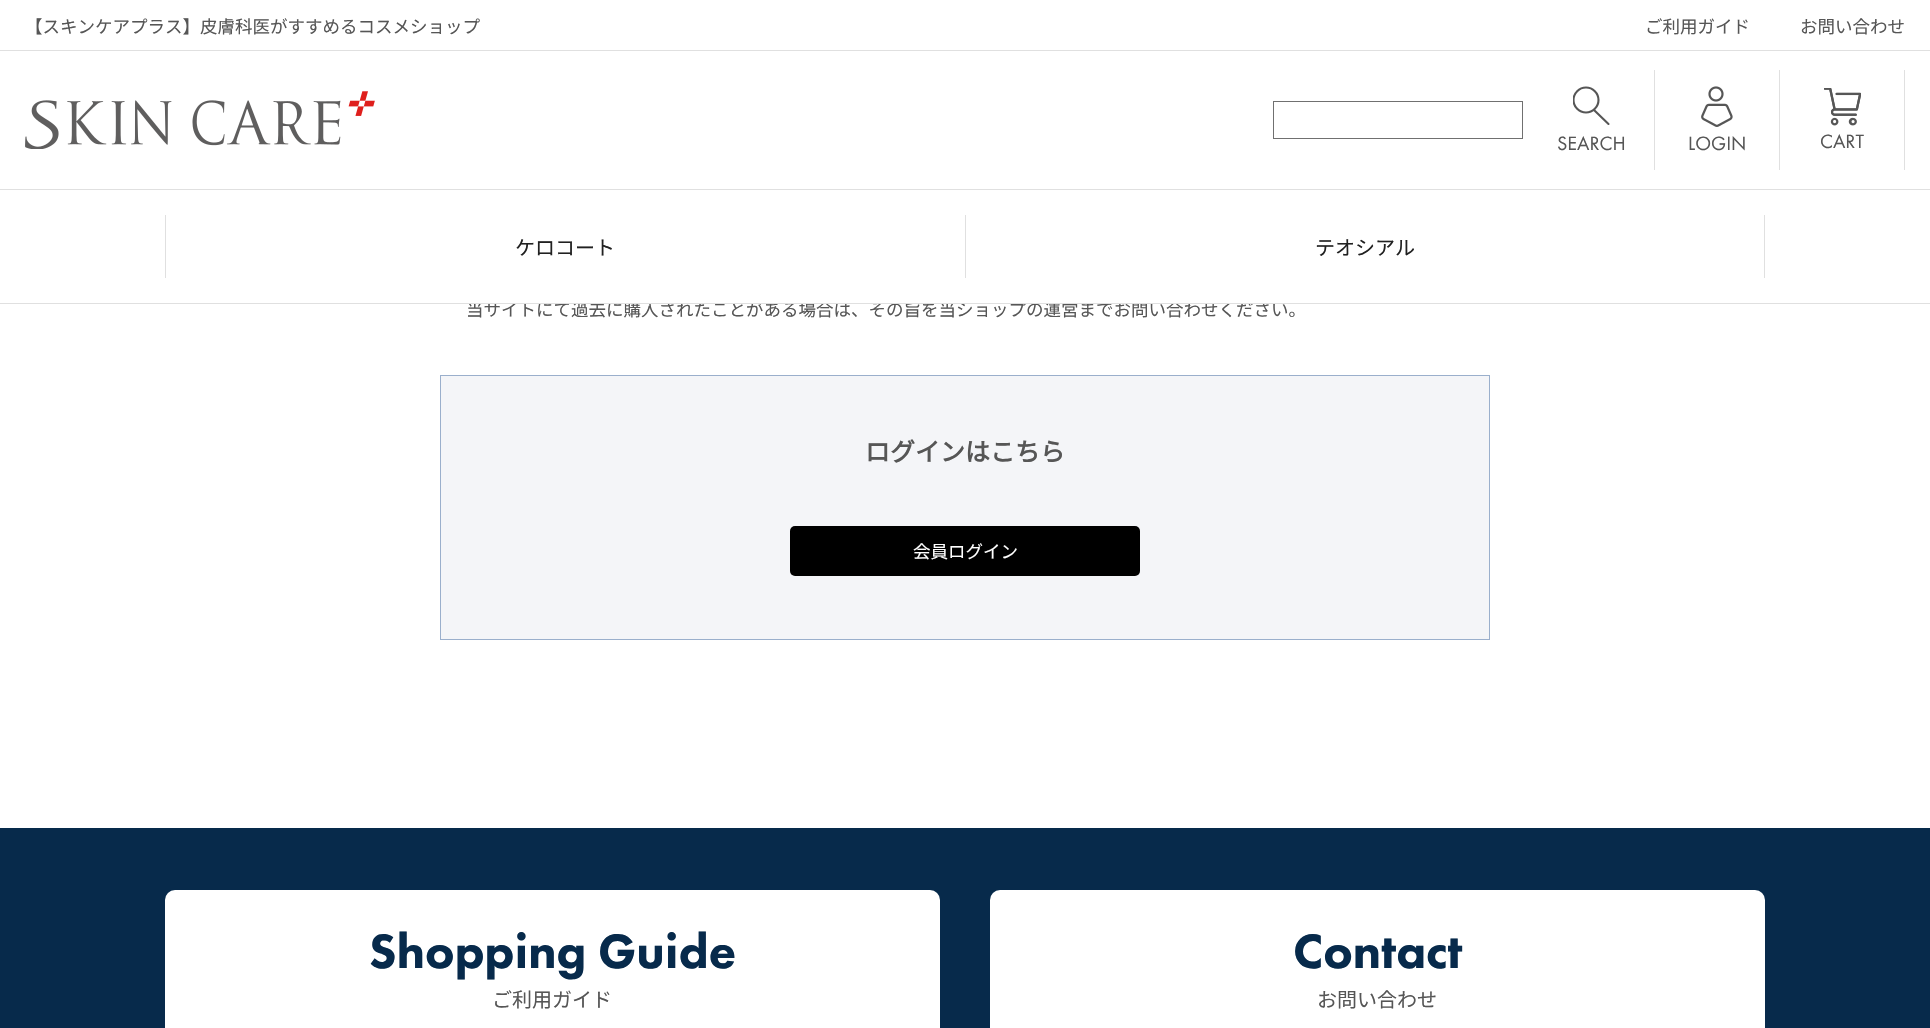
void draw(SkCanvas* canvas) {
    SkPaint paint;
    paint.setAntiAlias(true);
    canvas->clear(0xFFFFFFFF);
    SkFont font1(fontMgr->matchFamilyStyle("Noto Sans JP", SkFontStyle(100, SkFontStyle::kNormal_Width, SkFontStyle::kUpright_Slant)), 17.5f);
    font1.setSubpixel(true);
    paint.setColor(0xFF565656);
    canvas->drawString("当サイトにて過去に購入されたことがある場合は、その旨を当ショップの運営までお問い合わせください。", 466, 316, font1, paint);
    paint.setColor(0xFFFFFFFF);
    canvas->drawRect(SkRect::MakeXYWH(468, 301, 797, 2), paint);
    paint.setColor(0xFFE0E0E0);
    canvas->drawRect(SkRect::MakeXYWH(0, 303, 1930, 1), paint);
    canvas->drawRect(SkRect::MakeXYWH(0, 50, 1930, 1), paint);
    paint.setColor(0xFF565656);
    canvas->drawString("【スキンケアプラス】皮膚科医がすすめるコスメショップ", 25, 33, font1, paint);
    canvas->drawString("ご利用ガイド", 1645, 33, font1, paint);
    canvas->drawString("お問い合わせ", 1800, 33, font1, paint);
    canvas->drawImageRect(SkImages::DeferredFromEncodedData(SkData::MakeFromFileName("img1.png")), SkRect::MakeXYWH(25, 91, 350, 58), SkSamplingOptions());
    paint.setColor(0xFFE0E0E0);
    canvas->drawRect(SkRect::MakeXYWH(1654, 70, 1, 100), paint);
    paint.setStyle(SkPaint::kStroke_Style);
    paint.setStrokeWidth(1);
    paint.setColor(0xFF707070);
    canvas->drawRect(SkRect::MakeXYWH(1273.5f, 101.5f, 249, 37), paint);
    canvas->save();
    canvas->clipRect(SkRect::MakeXYWH(1573, 86, 37, 40));
    paint.setStrokeWidth(2.1f);
    paint.setColor(0xFF565656);
    canvas->drawCircle(1586, 100, 12.5f, paint);
    canvas->restore();
    paint.setStrokeCap(SkPaint::kRound_Cap);
    canvas->drawPath(SkPathBuilder().moveTo(1594.5f, 110.5f).lineTo(1608.5f, 124).detach(), paint);
    SkFont font2(fontMgr->matchFamilyStyle("Futura PT", SkFontStyle::Normal()), 20);
    font2.setSubpixel(true);
    paint.setStyle(SkPaint::kFill_Style);
    canvas->drawString("SEARCH", 1557, 150, font2, paint);
    paint.setColor(0xFFE0E0E0);
    canvas->drawRect(SkRect::MakeXYWH(1779, 70, 1, 100), paint);
    canvas->drawImageRect(SkImages::DeferredFromEncodedData(SkData::MakeFromFileName("img2.png")), SkRect::MakeXYWH(1701, 86, 32, 41), SkSamplingOptions());
    paint.setColor(0xFF565656);
    canvas->drawString("LOGIN", 1688, 150, font2, paint);
    paint.setColor(0xFFE0E0E0);
    canvas->drawRect(SkRect::MakeXYWH(1904, 70, 1, 100), paint);
    canvas->drawImageRect(SkImages::DeferredFromEncodedData(SkData::MakeFromFileName("img3.png")), SkRect::MakeXYWH(1824, 88, 37, 38), SkSamplingOptions());
    paint.setColor(0xFF565656);
    canvas->drawString("CART", 1820, 148, font2, paint);
    paint.setColor(0xFFE0E0E0);
    canvas->drawRect(SkRect::MakeXYWH(0, 189, 1930, 1), paint);
    canvas->drawRect(SkRect::MakeXYWH(965, 215, 1, 63), paint);
    canvas->drawRect(SkRect::MakeXYWH(165, 215, 1, 63), paint);
    SkFont font3(fontMgr->matchFamilyStyle("Noto Sans JP", SkFontStyle(100, SkFontStyle::kNormal_Width, SkFontStyle::kUpright_Slant)), 20);
    font3.setSubpixel(true);
    paint.setColor(0xFF212121);
    canvas->drawString("ケロコート", 515, 255, font3, paint);
    paint.setColor(0xFFE0E0E0);
    canvas->drawRect(SkRect::MakeXYWH(1764, 215, 1, 63), paint);
    paint.setColor(0xFF212121);
    canvas->drawString("テオシアル", 1315, 255, font3, paint);
    paint.setColor(0xFFF4F5F8);
    canvas->drawRect(SkRect::MakeXYWH(440.5f, 375.5f, 1049, 264), paint);
    paint.setStyle(SkPaint::kStroke_Style);
    paint.setStrokeWidth(1);
    paint.setStrokeCap(SkPaint::kButt_Cap);
    paint.setColor(0xFF9AAFCC);
    canvas->drawRect(SkRect::MakeXYWH(440.5f, 375.5f, 1049, 264), paint);
    SkFont font4(fontMgr->matchFamilyStyle("Noto Sans JP", SkFontStyle::Bold()), 25);
    font4.setSubpixel(true);
    paint.setStyle(SkPaint::kFill_Style);
    paint.setColor(0xFF565656);
    canvas->drawString("ログインはこちら", 865, 461, font4, paint);
    paint.setColor(0xFF000000);
    canvas->drawRoundRect(SkRect::MakeXYWH(790, 526, 350, 50), 5, 5, paint);
    paint.setColor(0xFFFFFFFF);
    canvas->drawString("会員ログイン", 913, 558, font1, paint);
    paint.setColor(0xFF072A4B);
    canvas->drawRect(SkRect::MakeXYWH(0, 828, 1930, 200), paint);
    paint.setColor(0xFFFFFFFF);
    canvas->drawRoundRect(SkRect::MakeXYWH(165, 890, 775, 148), 10, 10, paint);
    SkFont font5(fontMgr->matchFamilyStyle("Futura PT", SkFontStyle(900, SkFontStyle::kNormal_Width, SkFontStyle::kUpright_Slant)), 50);
    font5.setSubpixel(true);
    paint.setColor(0xFF072A4B);
    canvas->drawString("Shopping Guide", 369, 968, font5, paint);
    paint.setColor(0xFF565656);
    canvas->drawString("ご利用ガイド", 492, 1007, font3, paint);
    paint.setColor(0xFFFFFFFF);
    canvas->drawRoundRect(SkRect::MakeXYWH(990, 890, 775, 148), 10, 10, paint);
    paint.setColor(0xFF072A4B);
    canvas->drawString("Contact", 1293, 968, font5, paint);
    paint.setColor(0xFF565656);
    canvas->drawString("お問い合わせ", 1317, 1007, font3, paint);
}
